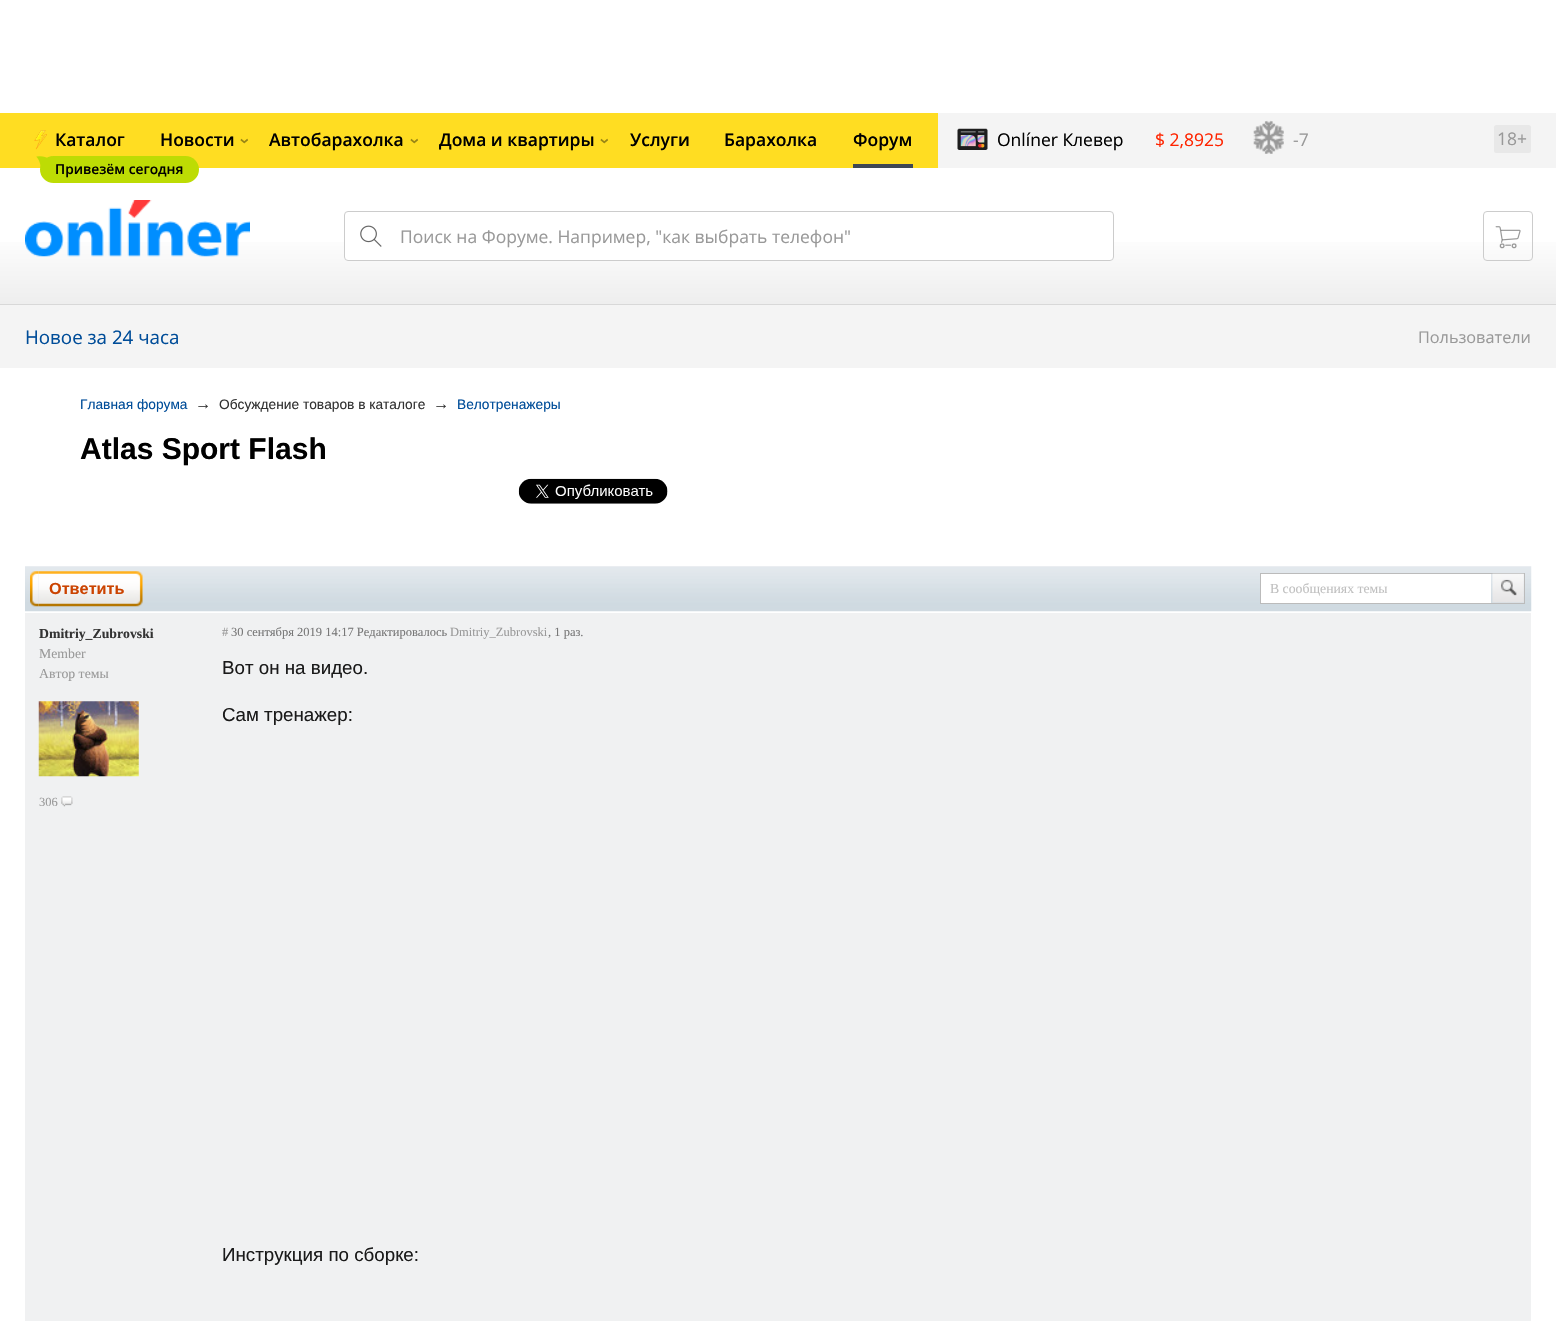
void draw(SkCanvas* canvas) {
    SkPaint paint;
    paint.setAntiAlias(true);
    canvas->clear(0xFFFFFFFF);
    {
        const SkColor colors[] = {0xFFFFFFFF, 0xFFFFFFFF, 0xFFE3E3E3};
        const float stops[] = {0, 0.5f, 1};
        const SkPoint ends[] = {{778, 112}, {778, 350}};
        paint.setShader(SkGradientShader::MakeLinear(ends, colors, stops, 3, SkTileMode::kClamp));
        paint.setAlpha(255);
    }
    canvas->drawRect(SkRect::MakeXYWH(0, 242, 1556, 62), paint);
    paint.setShader(nullptr);
    paint.setColor(0xFFF4F4F4);
    canvas->drawRect(SkRect::MakeXYWH(938, 113, 618, 55), paint);
    paint.setColor(0xFFFFDD22);
    canvas->drawRect(SkRect::MakeXYWH(0, 113, 938, 55), paint);
    SkFont font1(fontMgr->matchFamilyStyle("Open Sans", SkFontStyle(600, SkFontStyle::kNormal_Width, SkFontStyle::kUpright_Slant)), 17.5f);
    font1.setSubpixel(true);
    paint.setColor(0xFF000000);
    canvas->drawString("Каталог", 55, 146, font1, paint);
    canvas->drawImageRect(SkImages::DeferredFromEncodedData(SkData::MakeFromFileName("img1.png")), SkRect::MakeXYWH(34, 130, 13, 20), SkSamplingOptions());
    paint.setColor(0xFFBDDC04);
    canvas->drawRoundRect(SkRect::MakeXYWH(40, 156, 159, 27), 13.5f, 13.5f, paint);
    canvas->drawImageRect(SkImages::DeferredFromEncodedData(SkData::MakeFromFileName("img2.png")), SkRect::MakeXYWH(36, 156, 16, 11), SkSamplingOptions());
    SkFont font2(fontMgr->matchFamilyStyle("Open Sans", SkFontStyle(600, SkFontStyle::kNormal_Width, SkFontStyle::kUpright_Slant)), 13.75f);
    font2.setSubpixel(true);
    paint.setColor(0xFF000000);
    canvas->drawString("Привезём сегодня", 55, 174, font2, paint);
    canvas->drawString("Новости", 160, 146, font1, paint);
    paint.setColor(0xFF998514);
    canvas->save();
    canvas->rotate(-90, 249, 144);
    canvas->drawString("‹", 249, 144, font1, paint);
    canvas->restore();
    paint.setColor(0xFF000000);
    canvas->drawString("Автобарахолка", 269, 146, font1, paint);
    paint.setColor(0xFF998514);
    canvas->save();
    canvas->rotate(-90, 419, 144);
    canvas->drawString("‹", 419, 144, font1, paint);
    canvas->restore();
    paint.setColor(0xFF000000);
    canvas->drawString("Дома и квартиры", 439, 146, font1, paint);
    paint.setColor(0xFF998514);
    canvas->save();
    canvas->rotate(-90, 609, 144);
    canvas->drawString("‹", 609, 144, font1, paint);
    canvas->restore();
    paint.setColor(0xFF000000);
    canvas->drawString("Услуги", 630, 146, font1, paint);
    canvas->drawString("Барахолка", 724, 146, font1, paint);
    canvas->drawString("Форум", 853, 146, font1, paint);
    paint.setColor(0xFF3E4753);
    canvas->drawRect(SkRect::MakeXYWH(853, 164, 60, 4), paint);
    canvas->drawImageRect(SkImages::DeferredFromEncodedData(SkData::MakeFromFileName("img3.png")), SkRect::MakeXYWH(957, 128, 31, 22), SkSamplingOptions());
    SkFont font3(fontMgr->matchFamilyStyle("Open Sans", SkFontStyle::Normal()), 17.5f);
    font3.setSubpixel(true);
    paint.setColor(0xFF000000);
    canvas->drawString("Onlíner Клевер", 997, 146, font3, paint);
    paint.setColor(0xFFFF2400);
    canvas->drawString("$ 2,8925", 1155, 146, font3, paint);
    canvas->drawImageRect(SkImages::DeferredFromEncodedData(SkData::MakeFromFileName("img4.png")), SkRect::MakeXYWH(1253, 120, 31, 34), SkSamplingOptions());
    paint.setColor(0xFF999999);
    canvas->drawString("-7", 1293, 146, font3, paint);
    paint.setColor(0xFFE8E8E8);
    canvas->drawRoundRect(SkRect::MakeXYWH(1494, 125, 37, 28), 2.5f, 2.5f, paint);
    paint.setColor(0xFF999999);
    canvas->drawString("18+", 1497, 145, font3, paint);
    canvas->drawImageRect(SkImages::DeferredFromEncodedData(SkData::MakeFromFileName("img5.png")), SkRect::MakeXYWH(25, 200, 225, 57), SkSamplingOptions());
    paint.setColor(0xFFFFFFFF);
    canvas->drawRoundRect(SkRect::MakeXYWH(344, 211, 770, 50), 4, 4, paint);
    canvas->drawImageRect(SkImages::DeferredFromEncodedData(SkData::MakeFromFileName("img6.png")), SkRect::MakeXYWH(360, 225, 22, 22), SkSamplingOptions());
    paint.setStyle(SkPaint::kStroke_Style);
    paint.setStrokeWidth(1);
    paint.setColor(0xFFCCCCCC);
    canvas->drawRoundRect(SkRect::MakeXYWH(344.5f, 211.5f, 769, 49), 3.5f, 3.5f, paint);
    paint.setStyle(SkPaint::kFill_Style);
    paint.setColor(0xFF999999);
    canvas->drawString("Поиск на Форуме. Например, \"как выбрать телефон\"", 400, 243, font3, paint);
    paint.setStyle(SkPaint::kStroke_Style);
    paint.setColor(0xFFCCCCCC);
    canvas->drawRoundRect(SkRect::MakeXYWH(1483.5f, 211.5f, 49, 49), 3.5f, 3.5f, paint);
    canvas->drawImageRect(SkImages::DeferredFromEncodedData(SkData::MakeFromFileName("img7.png")), SkRect::MakeXYWH(1495, 226, 26, 23), SkSamplingOptions());
    paint.setStyle(SkPaint::kFill_Style);
    paint.setColor(0xFFD8D8D8);
    canvas->drawRect(SkRect::MakeXYWH(0, 304, 1556, 1), paint);
    paint.setColor(0xFFF4F4F4);
    canvas->drawRect(SkRect::MakeXYWH(0, 305, 1556, 63), paint);
    SkFont font4(fontMgr->matchFamilyStyle("Open Sans", SkFontStyle::Normal()), 18.75f);
    font4.setSubpixel(true);
    paint.setColor(0xFF004D99);
    canvas->drawString("Новое за 24 часа", 25, 344, font4, paint);
    SkFont font5(fontMgr->matchFamilyStyle("Open Sans", SkFontStyle::Normal()), 16.25f);
    font5.setSubpixel(true);
    paint.setColor(0xFF999999);
    canvas->drawString("Пользователи", 1418, 343, font5, paint);
    SkFont font6(fontMgr->matchFamilyStyle("Liberation Sans", SkFontStyle::Normal()), 13.75f);
    font6.setSubpixel(true);
    paint.setColor(0xFF004D99);
    canvas->drawString("Главная форума", 80, 409, font6, paint);
    SkFont font7(fontMgr->matchFamilyStyle("Liberation Sans", SkFontStyle::Normal()), 16.25f);
    font7.setSubpixel(true);
    paint.setColor(0xFF333333);
    canvas->drawString("→", 195, 409, font7, paint);
    canvas->drawString("Обсуждение товаров в каталоге", 219, 409, font6, paint);
    canvas->drawString("→", 433, 409, font7, paint);
    paint.setColor(0xFF004D99);
    canvas->drawString("Велотренажеры", 457, 409, font6, paint);
    SkFont font8(fontMgr->matchFamilyStyle("Liberation Sans", SkFontStyle::Bold()), 30);
    font8.setSubpixel(true);
    paint.setColor(0xFF000000);
    canvas->drawString("Atlas Sport Flash", 80, 459, font8, paint);
    canvas->drawImageRect(SkImages::DeferredFromEncodedData(SkData::MakeFromFileName("img8.png")), SkRect::MakeXYWH(518, 478, 150, 26), SkSamplingOptions());
    canvas->drawImageRect(SkImages::DeferredFromEncodedData(SkData::MakeFromFileName("img9.png")), SkRect::MakeXYWH(25, 566, 1507, 46), SkSamplingOptions());
    canvas->drawImageRect(SkImages::DeferredFromEncodedData(SkData::MakeFromFileName("img10.png")), SkRect::MakeXYWH(30, 571, 9, 36), SkSamplingOptions());
    canvas->drawImageRect(SkImages::DeferredFromEncodedData(SkData::MakeFromFileName("img11.png")), SkRect::MakeXYWH(38, 571, 105, 36), SkSamplingOptions());
    SkFont font9(fontMgr->matchFamilyStyle("Liberation Sans", SkFontStyle::Bold()), 16.25f);
    font9.setSubpixel(true);
    paint.setColor(0xFFCB4300);
    canvas->drawString("Ответить", 49, 594, font9, paint);
    paint.setStyle(SkPaint::kStroke_Style);
    paint.setColor(0xFFBBBBBB);
    canvas->drawRect(SkRect::MakeXYWH(1260.5f, 573.5f, 264, 30), paint);
    paint.setStyle(SkPaint::kFill_Style);
    paint.setColor(0xFFFFFFFF);
    canvas->drawRect(SkRect::MakeXYWH(1261, 574, 230, 29), paint);
    SkFont font10(fontMgr->matchFamilyStyle("Liberation Serif", SkFontStyle::Normal()), 13.75f);
    font10.setSubpixel(true);
    paint.setColor(0xFFBFBFBF);
    canvas->drawString("В сообщениях темы", 1270, 593, font10, paint);
    canvas->drawImageRect(SkImages::DeferredFromEncodedData(SkData::MakeFromFileName("img12.png")), SkRect::MakeXYWH(1492, 573, 32, 30), SkSamplingOptions());
    paint.setColor(0xFFF0F1F2);
    canvas->drawRect(SkRect::MakeXYWH(25, 613, 1506, 708), paint);
    SkFont font11(fontMgr->matchFamilyStyle("Liberation Serif", SkFontStyle::Bold()), 13.75f);
    font11.setSubpixel(true);
    paint.setColor(0xFF333333);
    canvas->drawString("Dmitriy_Zubrovski", 39, 638, font11, paint);
    paint.setColor(0xFF999999);
    canvas->drawString("Member", 39, 658, font10, paint);
    canvas->drawString("Автор темы", 39, 678, font10, paint);
    canvas->drawImageRect(SkImages::DeferredFromEncodedData(SkData::MakeFromFileName("img13.png")), SkRect::MakeXYWH(38, 701, 101, 76), SkSamplingOptions());
    SkFont font12(fontMgr->matchFamilyStyle("Liberation Serif", SkFontStyle::Normal()), 12.5f);
    font12.setSubpixel(true);
    canvas->drawString("306", 39, 806, font12, paint);
    canvas->drawImageRect(SkImages::DeferredFromEncodedData(SkData::MakeFromFileName("img14.png")), SkRect::MakeXYWH(61, 796, 12, 11), SkSamplingOptions());
    canvas->drawString("#", 222, 636, font12, paint);
    paint.setColor(0xFF777777);
    canvas->drawString("30 сентября 2019 14:17 Редактировалось", 231, 636, font12, paint);
    paint.setColor(0xFF999999);
    canvas->drawString("Dmitriy_Zubrovski", 450, 636, font12, paint);
    paint.setColor(0xFF777777);
    canvas->drawString(", 1 раз.", 548, 636, font12, paint);
    SkFont font13(fontMgr->matchFamilyStyle("Liberation Sans", SkFontStyle::Normal()), 18.75f);
    font13.setSubpixel(true);
    paint.setColor(0xFF1A1A1A);
    canvas->drawString("Вот он на видео.", 222, 674, font13, paint);
    canvas->drawString("Сам тренажер:", 222, 721, font13, paint);
    canvas->drawString("Инструкция по сборке:", 222, 1261, font13, paint);
}
